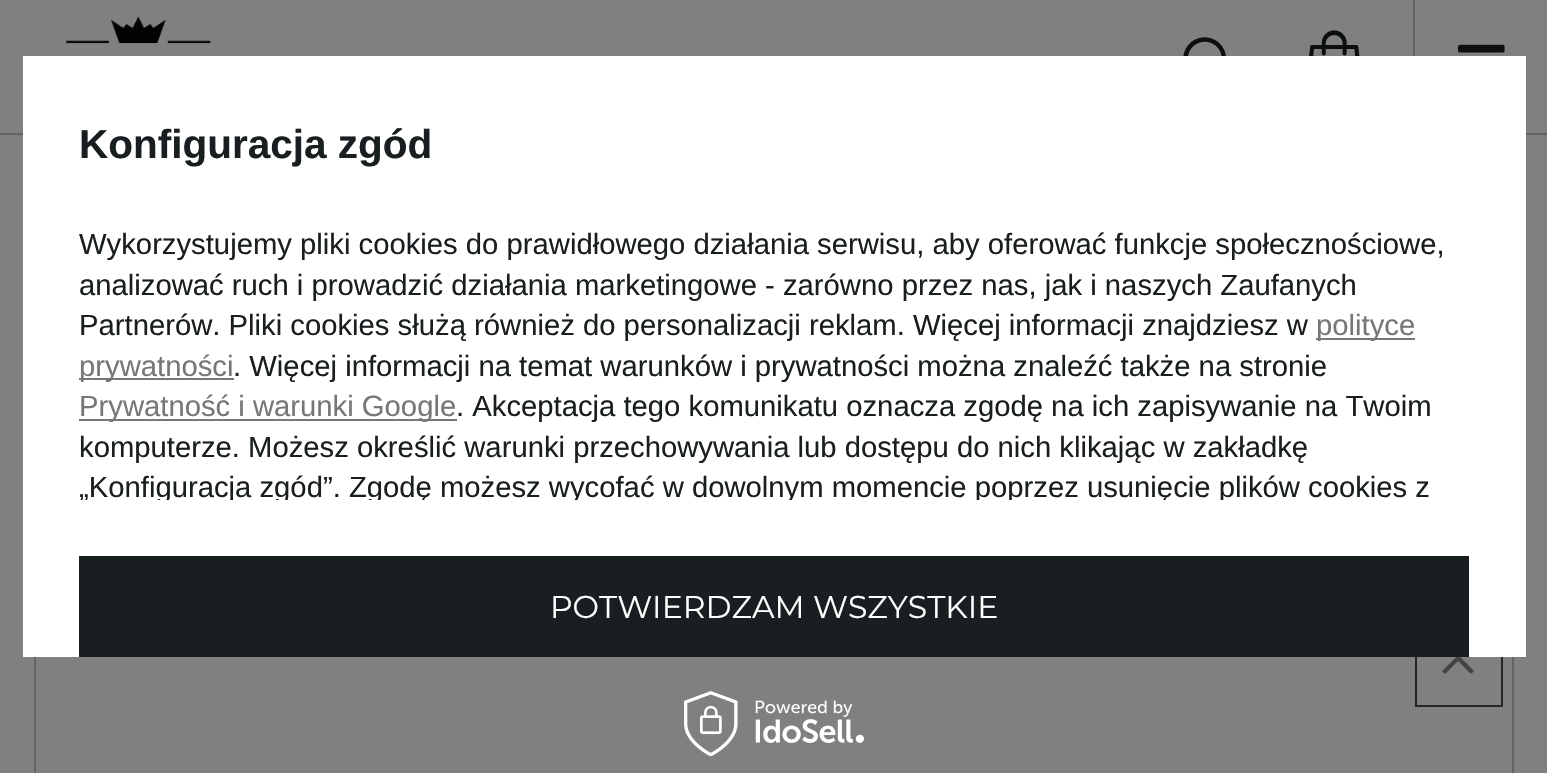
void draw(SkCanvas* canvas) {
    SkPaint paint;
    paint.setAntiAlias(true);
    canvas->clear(0xFF808080);
    paint.setColor(0xFF626464);
    canvas->drawRect(SkRect::MakeXYWH(0, 133, 1547, 2), paint);
    canvas->drawImageRect(SkImages::DeferredFromEncodedData(SkData::MakeFromFileName("img1.png")), SkRect::MakeXYWH(65, 16, 146, 28), SkSamplingOptions());
    canvas->drawImageRect(SkImages::DeferredFromEncodedData(SkData::MakeFromFileName("img2.png")), SkRect::MakeXYWH(1183, 37, 43, 19), SkSamplingOptions());
    canvas->drawImageRect(SkImages::DeferredFromEncodedData(SkData::MakeFromFileName("img3.png")), SkRect::MakeXYWH(1309, 30, 51, 26), SkSamplingOptions());
    canvas->drawRect(SkRect::MakeXYWH(1413, 0, 2, 56), paint);
    canvas->drawImageRect(SkImages::DeferredFromEncodedData(SkData::MakeFromFileName("img4.png")), SkRect::MakeXYWH(1458, 44, 47, 9), SkSamplingOptions());
    paint.setStyle(SkPaint::kStroke_Style);
    paint.setStrokeWidth(2);
    canvas->drawRect(SkRect::MakeXYWH(35, 532, 1478, 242), paint);
    paint.setColor(0xFF262626);
    canvas->drawRect(SkRect::MakeXYWH(1416, 620, 86, 86), paint);
    paint.setStyle(SkPaint::kFill_Style);
    paint.setColor(0xFFFFFFFF);
    canvas->drawRect(SkRect::MakeXYWH(23, 56, 1503, 601), paint);
    SkFont font1(fontMgr->matchFamilyStyle("Liberation Sans", SkFontStyle::Bold()), 40.5f);
    font1.setSubpixel(true);
    paint.setColor(0xFF191E20);
    canvas->drawString("Konfiguracja zgód", 79, 158, font1, paint);
    SkFont font2(fontMgr->matchFamilyStyle("Liberation Sans", SkFontStyle::Normal()), 29.25f);
    font2.setSubpixel(true);
    canvas->drawString("Wykorzystujemy pliki cookies do prawidłowego działania serwisu, aby oferować funkcje społecznościowe,", 79, 254, font2, paint);
    canvas->drawString("analizować ruch i prowadzić działania marketingowe - zarówno przez nas, jak i naszych Zaufanych", 79, 295, font2, paint);
    canvas->drawString("Partnerów. Pliki cookies służą również do personalizacji reklam. Więcej informacji znajdziesz w", 79, 335, font2, paint);
    paint.setColor(0xFF777777);
    canvas->drawRect(SkRect::MakeXYWH(1316, 338, 99, 2), paint);
    canvas->drawString("polityce", 1316, 335, font2, paint);
    canvas->drawRect(SkRect::MakeXYWH(79, 378, 155, 2), paint);
    canvas->drawString("prywatności", 79, 376, font2, paint);
    paint.setColor(0xFF191E20);
    canvas->drawString(". Więcej informacji na temat warunków i prywatności można znaleźć także na stronie", 233, 376, font2, paint);
    paint.setColor(0xFF777777);
    canvas->drawRect(SkRect::MakeXYWH(79, 419, 378, 2), paint);
    canvas->drawString("Prywatność i warunki Google", 79, 416, font2, paint);
    paint.setColor(0xFF191E20);
    canvas->drawString(". Akceptacja tego komunikatu oznacza zgodę na ich zapisywanie na Twoim", 456, 416, font2, paint);
    canvas->drawString("komputerze. Możesz określić warunki przechowywania lub dostępu do nich klikając w zakładkę", 79, 457, font2, paint);
    canvas->save();
    canvas->clipRect(SkRect::MakeXYWH(56, 113, 1436, 387));
    canvas->drawString("„Konfiguracja zgód”. Zgodę możesz wycofać w dowolnym momencie poprzez usunięcie plików cookies z", 79, 497, font2, paint);
    canvas->restore();
    canvas->drawRect(SkRect::MakeXYWH(79, 556, 1390, 101), paint);
    SkFont font3(fontMgr->matchFamilyStyle("Montserrat", SkFontStyle::Normal()), 31.5f);
    font3.setSubpixel(true);
    paint.setColor(0xFFFFFFFF);
    canvas->drawString("POTWIERDZAM WSZYSTKIE", 550, 618, font3, paint);
    canvas->drawImageRect(SkImages::DeferredFromEncodedData(SkData::MakeFromFileName("img5.png")), SkRect::MakeXYWH(684, 691, 180, 65), SkSamplingOptions());
    canvas->drawImageRect(SkImages::DeferredFromEncodedData(SkData::MakeFromFileName("img6.png")), SkRect::MakeXYWH(1442, 657, 32, 17), SkSamplingOptions());
}
